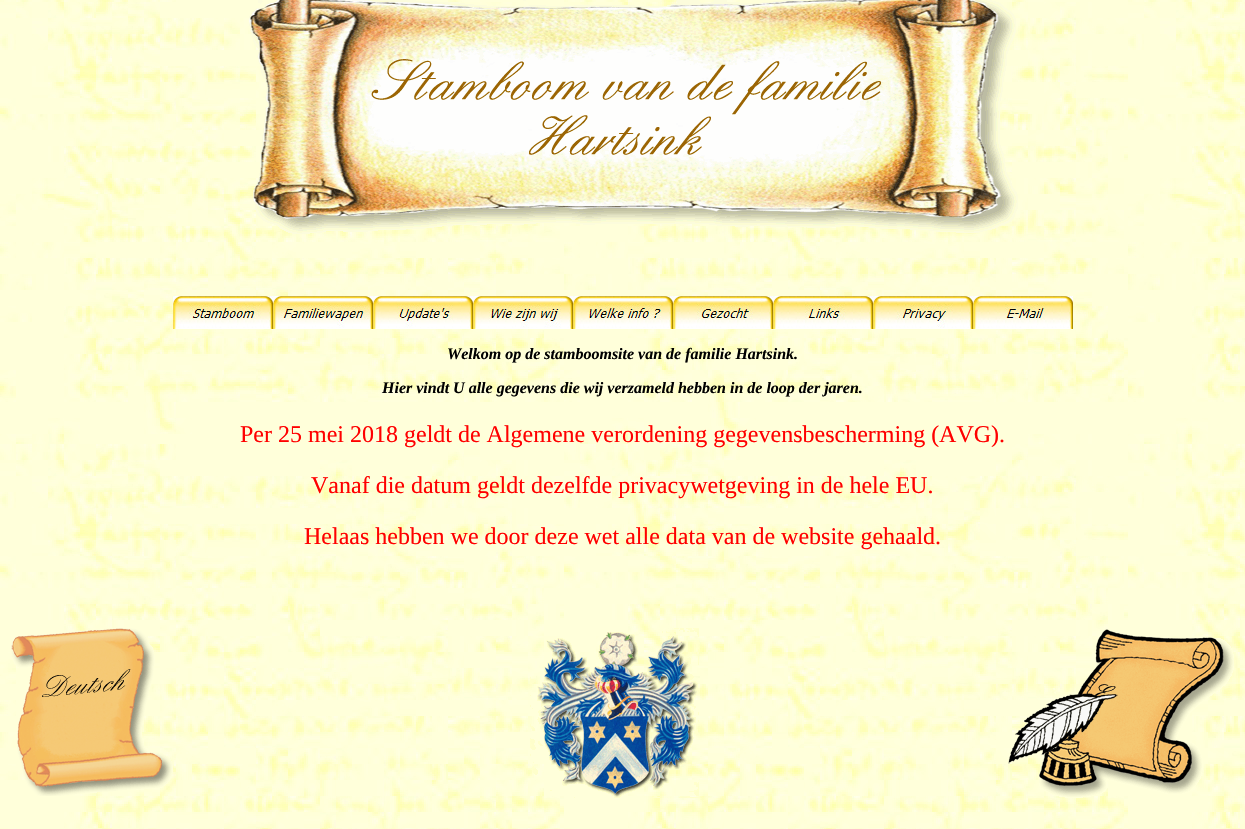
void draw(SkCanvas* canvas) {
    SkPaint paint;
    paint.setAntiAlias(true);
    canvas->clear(0xFFFFFFFF);
    canvas->drawImageRect(SkImages::DeferredFromEncodedData(SkData::MakeFromFileName("img1.png")), SkRect::MakeXYWH(0, 0, 1245, 829), SkSamplingOptions());
    canvas->drawImageRect(SkImages::DeferredFromEncodedData(SkData::MakeFromFileName("img2.png")), SkRect::MakeXYWH(249, 0, 769, 234), SkSamplingOptions());
    canvas->drawImageRect(SkImages::DeferredFromEncodedData(SkData::MakeFromFileName("img3.png")), SkRect::MakeXYWH(173, 296, 100, 33), SkSamplingOptions());
    canvas->drawImageRect(SkImages::DeferredFromEncodedData(SkData::MakeFromFileName("img4.png")), SkRect::MakeXYWH(273, 296, 100, 33), SkSamplingOptions());
    canvas->drawImageRect(SkImages::DeferredFromEncodedData(SkData::MakeFromFileName("img5.png")), SkRect::MakeXYWH(373, 296, 100, 33), SkSamplingOptions());
    canvas->drawImageRect(SkImages::DeferredFromEncodedData(SkData::MakeFromFileName("img6.png")), SkRect::MakeXYWH(473, 296, 100, 33), SkSamplingOptions());
    canvas->drawImageRect(SkImages::DeferredFromEncodedData(SkData::MakeFromFileName("img7.png")), SkRect::MakeXYWH(573, 296, 100, 33), SkSamplingOptions());
    canvas->drawImageRect(SkImages::DeferredFromEncodedData(SkData::MakeFromFileName("img8.png")), SkRect::MakeXYWH(673, 296, 100, 33), SkSamplingOptions());
    canvas->drawImageRect(SkImages::DeferredFromEncodedData(SkData::MakeFromFileName("img9.png")), SkRect::MakeXYWH(773, 296, 100, 33), SkSamplingOptions());
    canvas->drawImageRect(SkImages::DeferredFromEncodedData(SkData::MakeFromFileName("img10.png")), SkRect::MakeXYWH(873, 296, 100, 33), SkSamplingOptions());
    canvas->drawImageRect(SkImages::DeferredFromEncodedData(SkData::MakeFromFileName("img11.png")), SkRect::MakeXYWH(973, 296, 100, 33), SkSamplingOptions());
    SkFont font1(fontMgr->matchFamilyStyle("Liberation Serif", SkFontStyle::BoldItalic()), 16);
    font1.setSubpixel(true);
    paint.setColor(0xFF000000);
    canvas->drawString("Welkom op de stamboomsite van de familie Hartsink.", 447, 359, font1, paint);
    canvas->drawString("Hier vindt U alle gegevens die wij verzameld hebben in de loop der jaren.", 382, 393, font1, paint);
    SkFont font2(fontMgr->matchFamilyStyle("Liberation Serif", SkFontStyle::Normal()), 24);
    font2.setSubpixel(true);
    paint.setColor(0xFFFF0000);
    canvas->drawString("Per 25 mei 2018 geldt de Algemene verordening gegevensbescherming (AVG).", 240, 442, font2, paint);
    canvas->drawString("Vanaf die datum geldt dezelfde privacywetgeving in de hele EU.", 311, 493, font2, paint);
    canvas->drawString("Helaas hebben we door deze wet alle data van de website gehaald.", 304, 544, font2, paint);
    canvas->drawImageRect(SkImages::DeferredFromEncodedData(SkData::MakeFromFileName("img12.png")), SkRect::MakeXYWH(11, 628, 162, 168), SkSamplingOptions());
    canvas->drawImageRect(SkImages::DeferredFromEncodedData(SkData::MakeFromFileName("img13.png")), SkRect::MakeXYWH(530, 628, 169, 170), SkSamplingOptions());
    canvas->drawImageRect(SkImages::DeferredFromEncodedData(SkData::MakeFromFileName("img14.png")), SkRect::MakeXYWH(1008, 629, 226, 169), SkSamplingOptions());
}
